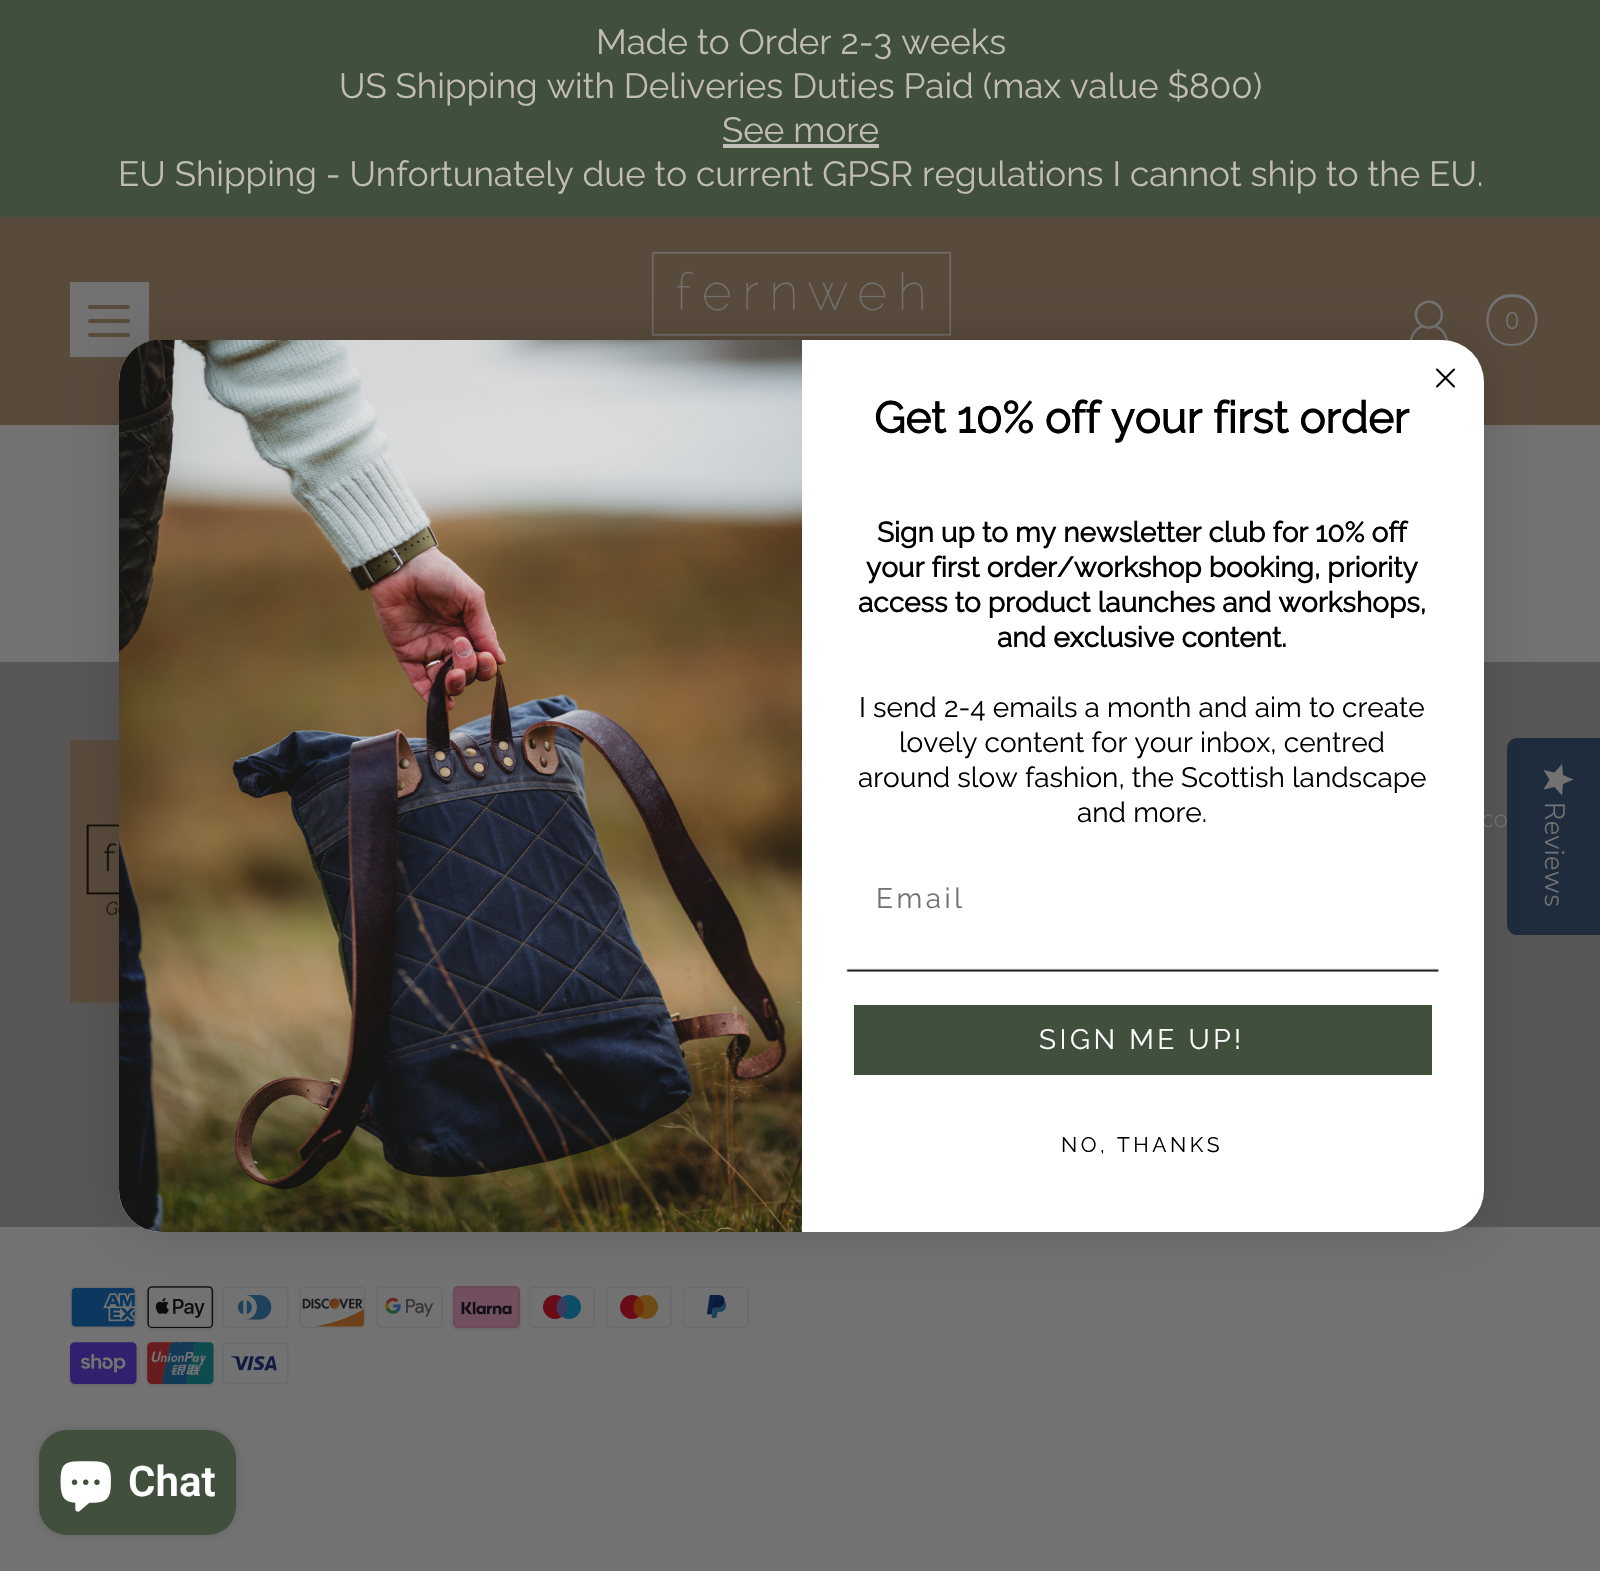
void draw(SkCanvas* canvas) {
    SkPaint paint;
    paint.setAntiAlias(true);
    auto spacedText = [&](const char* s, float x, float y, const SkFont& font, const SkPaint& ink, float letter, float word) {
        std::vector<SkGlyphID> glyphs(font.countText(s, strlen(s), SkTextEncoding::kUTF8));
        std::vector<float> xs(glyphs.size());
        font.textToGlyphs(s, strlen(s), SkTextEncoding::kUTF8, glyphs);
        font.getXPos(glyphs, xs, x);
        float extra = 0;
        for (size_t i = 0; i < glyphs.size(); i++) {
            xs[i] += extra;
            extra += letter + word * (glyphs[i] == font.unicharToGlyph(' '));
        }
        canvas->drawTextBlob(SkTextBlob::MakeFromPosHGlyphs(glyphs, xs, y, font), 0, 0, ink);
    };
    canvas->clear(0xFF727272);
    paint.setColor(0xFF40503D);
    canvas->drawRect(SkRect::MakeXYWH(0, 0, 1600, 217), paint);
    SkFont font1(fontMgr->matchFamilyStyle("Raleway", SkFontStyle(100, SkFontStyle::kNormal_Width, SkFontStyle::kUpright_Slant)), 35);
    font1.setSubpixel(true);
    paint.setColor(0xFFC1BCB6);
    canvas->drawString("Made to Order 2-3 weeks", 596, 54, font1, paint);
    canvas->drawString("US Shipping with Deliveries Duties Paid (max value $800)", 339, 98, font1, paint);
    canvas->drawString("See more", 722, 142, font1, paint);
    canvas->drawRect(SkRect::MakeXYWH(723, 144, 156, 4), paint);
    canvas->drawString("EU Shipping - Unfortunately due to current GPSR regulations I cannot ship to the EU.", 118, 186, font1, paint);
    paint.setColor(0xFF594B3C);
    canvas->drawRect(SkRect::MakeXYWH(0, 217, 1600, 208), paint);
    canvas->drawImageRect(SkImages::DeferredFromEncodedData(SkData::MakeFromFileName("img1.png")), SkRect::MakeXYWH(651, 251, 301, 85), SkSamplingOptions());
    paint.setColor(0xFF727272);
    canvas->drawRect(SkRect::MakeXYWH(70, 282, 79, 75), paint);
    paint.setColor(0xFF594B3C);
    canvas->drawRoundRect(SkRect::MakeXYWH(88, 319, 42, 4), 2, 2, paint);
    canvas->drawRoundRect(SkRect::MakeXYWH(88, 305, 42, 4), 2, 2, paint);
    canvas->drawRoundRect(SkRect::MakeXYWH(88, 333, 42, 4), 2, 2, paint);
    canvas->drawImageRect(SkImages::DeferredFromEncodedData(SkData::MakeFromFileName("img2.png")), SkRect::MakeXYWH(1409, 300, 40, 41), SkSamplingOptions());
    paint.setColor(0xFF727272);
    canvas->drawPath(SkPathBuilder().moveTo(1512, 346).cubicTo(1478, 346, 1478, 294, 1512, 294).cubicTo(1546, 294, 1546, 346, 1512, 346).close().moveTo(1512, 344).cubicTo(1543, 344, 1543, 297, 1512, 297).cubicTo(1481, 297, 1481, 344, 1512, 344).close().detach(), paint);
    SkFont font2(fontMgr->matchFamilyStyle("Quicksand", SkFontStyle::Normal()), 24);
    font2.setSubpixel(true);
    canvas->drawString("0", 1505, 329, font2, paint);
    paint.setColor(0xFF595755);
    canvas->drawRect(SkRect::MakeXYWH(0, 662, 1600, 565), paint);
    canvas->drawImageRect(SkImages::DeferredFromEncodedData(SkData::MakeFromFileName("img3.png")), SkRect::MakeXYWH(70, 740, 49, 263), SkSamplingOptions());
    paint.setColor(0xFF727272);
    canvas->drawString("co", 1481, 827, font2, paint);
    canvas->drawImageRect(SkImages::DeferredFromEncodedData(SkData::MakeFromFileName("img4.png")), SkRect::MakeXYWH(70, 1286, 67, 42), SkSamplingOptions());
    paint.setColor(0x1A0C0C0C);
    paint.setMaskFilter(SkMaskFilter::MakeBlur(kNormal_SkBlurStyle, 2));
    canvas->drawRoundRect(SkRect::MakeXYWH(147, 1288, 67, 42), 5, 5, paint);
    paint.setMaskFilter(nullptr);
    canvas->drawImageRect(SkImages::DeferredFromEncodedData(SkData::MakeFromFileName("img5.png")), SkRect::MakeXYWH(147, 1286, 67, 42), SkSamplingOptions());
    canvas->drawImageRect(SkImages::DeferredFromEncodedData(SkData::MakeFromFileName("img6.png")), SkRect::MakeXYWH(222, 1286, 67, 42), SkSamplingOptions());
    canvas->drawImageRect(SkImages::DeferredFromEncodedData(SkData::MakeFromFileName("img7.png")), SkRect::MakeXYWH(299, 1286, 67, 42), SkSamplingOptions());
    canvas->drawImageRect(SkImages::DeferredFromEncodedData(SkData::MakeFromFileName("img8.png")), SkRect::MakeXYWH(376, 1286, 67, 42), SkSamplingOptions());
    paint.setMaskFilter(SkMaskFilter::MakeBlur(kNormal_SkBlurStyle, 2));
    canvas->drawRoundRect(SkRect::MakeXYWH(453, 1288, 67, 42), 5, 5, paint);
    paint.setMaskFilter(nullptr);
    canvas->drawImageRect(SkImages::DeferredFromEncodedData(SkData::MakeFromFileName("img9.png")), SkRect::MakeXYWH(453, 1286, 67, 42), SkSamplingOptions());
    canvas->drawImageRect(SkImages::DeferredFromEncodedData(SkData::MakeFromFileName("img10.png")), SkRect::MakeXYWH(529, 1286, 66, 42), SkSamplingOptions());
    canvas->drawImageRect(SkImages::DeferredFromEncodedData(SkData::MakeFromFileName("img11.png")), SkRect::MakeXYWH(606, 1286, 66, 42), SkSamplingOptions());
    canvas->drawImageRect(SkImages::DeferredFromEncodedData(SkData::MakeFromFileName("img12.png")), SkRect::MakeXYWH(683, 1286, 66, 42), SkSamplingOptions());
    paint.setMaskFilter(SkMaskFilter::MakeBlur(kNormal_SkBlurStyle, 2));
    canvas->drawRoundRect(SkRect::MakeXYWH(70, 1344, 67, 42), 5, 5, paint);
    paint.setMaskFilter(nullptr);
    canvas->drawImageRect(SkImages::DeferredFromEncodedData(SkData::MakeFromFileName("img13.png")), SkRect::MakeXYWH(70, 1342, 67, 42), SkSamplingOptions());
    paint.setMaskFilter(SkMaskFilter::MakeBlur(kNormal_SkBlurStyle, 2));
    canvas->drawRoundRect(SkRect::MakeXYWH(147, 1344, 67, 42), 5, 5, paint);
    paint.setMaskFilter(nullptr);
    canvas->drawImageRect(SkImages::DeferredFromEncodedData(SkData::MakeFromFileName("img14.png")), SkRect::MakeXYWH(147, 1342, 67, 42), SkSamplingOptions());
    canvas->drawImageRect(SkImages::DeferredFromEncodedData(SkData::MakeFromFileName("img15.png")), SkRect::MakeXYWH(222, 1342, 67, 42), SkSamplingOptions());
    paint.setColor(0xFF1E2C3E);
    canvas->drawPath(SkPathBuilder().moveTo(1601, 738).lineTo(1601, 935).lineTo(1517, 935).cubicTo(1511, 935, 1507, 930, 1507, 924).lineTo(1507, 749).cubicTo(1507, 743, 1511, 738, 1517, 738).close().detach(), paint);
    {
        const SkColor colors[] = {0xFF727272, 0xFF6A6A6A};
        const float stops[] = {1, 1};
        const SkPoint ends[] = {{1573, 764}, {1573, 795}};
        paint.setShader(SkGradientShader::MakeLinear(ends, colors, stops, 2, SkTileMode::kClamp));
        paint.setAlpha(255);
    }
    canvas->drawPath(SkPathBuilder().moveTo(1549.5f, 779.5f).lineTo(1543.5f, 789.5f).lineTo(1554.5f, 787).lineTo(1562, 795.5f).lineTo(1563, 784).lineTo(1573.5f, 779.5f).lineTo(1563, 775).lineTo(1562, 764).lineTo(1554.5f, 772.5f).lineTo(1543.5f, 770).close().detach(), paint);
    paint.setShader(nullptr);
    paint.setColor(0x26000000);
    paint.setMaskFilter(SkMaskFilter::MakeBlur(kNormal_SkBlurStyle, 26));
    canvas->drawRoundRect(SkRect::MakeXYWH(119, 340, 1365, 892), 42, 42, paint);
    paint.setMaskFilter(nullptr);
    paint.setColor(0xFFFFFFFF);
    canvas->drawRoundRect(SkRect::MakeXYWH(119, 340, 1365, 892), 42, 42, paint);
    paint.setStyle(SkPaint::kStroke_Style);
    paint.setStrokeWidth(2.1f);
    paint.setStrokeCap(SkPaint::kRound_Cap);
    paint.setStrokeJoin(SkPaint::kRound_Join);
    paint.setColor(0xFF000000);
    canvas->drawPath(SkPathBuilder().moveTo(1437, 369.5f).lineTo(1454, 386.5f).moveTo(1437, 386.5f).lineTo(1454, 369.5f).close().detach(), paint);
    canvas->drawImageRect(SkImages::DeferredFromEncodedData(SkData::MakeFromFileName("img16.png")), SkRect::MakeXYWH(119, 340, 683, 892), SkSamplingOptions());
    SkFont font3(fontMgr->matchFamilyStyle("Raleway", SkFontStyle::Bold()), 43.75f);
    font3.setSubpixel(true);
    paint.setStyle(SkPaint::kFill_Style);
    canvas->drawString("Get 10% off your first order", 874, 433, font3, paint);
    SkFont font4(fontMgr->matchFamilyStyle("Raleway", SkFontStyle::Bold()), 28);
    font4.setSubpixel(true);
    canvas->drawString("Sign up to my newsletter club for 10% off", 877, 542, font4, paint);
    canvas->drawString("your first order/workshop booking, priority", 866, 577, font4, paint);
    canvas->drawString("access to product launches and workshops,", 858, 612, font4, paint);
    canvas->drawString("and exclusive content.", 997, 647, font4, paint);
    SkFont font5(fontMgr->matchFamilyStyle("Raleway", SkFontStyle(100, SkFontStyle::kNormal_Width, SkFontStyle::kUpright_Slant)), 28);
    font5.setSubpixel(true);
    canvas->drawString("I send 2-4 emails a month and aim to create", 859, 717, font5, paint);
    canvas->drawString("lovely content for your inbox, centred", 899, 752, font5, paint);
    canvas->drawString("around slow fashion, the Scottish landscape", 858, 787, font5, paint);
    canvas->drawString("and more.", 1077, 822, font5, paint);
    paint.setColor(0xFF727272);
    spacedText("Email", 876, 908, font5, paint, 3.5f, 0);
    canvas->drawImageRect(SkImages::DeferredFromEncodedData(SkData::MakeFromFileName("img17.png")), SkRect::MakeXYWH(846, 968, 593, 4), SkSamplingOptions());
    paint.setColor(0xFF40503D);
    canvas->drawRect(SkRect::MakeXYWH(854, 1005, 578, 70), paint);
    paint.setColor(0xFFFFFFFF);
    spacedText("SIGN ME UP!", 1039, 1049, font5, paint, 3.5f, 0);
    SkFont font6(fontMgr->matchFamilyStyle("Raleway", SkFontStyle(100, SkFontStyle::kNormal_Width, SkFontStyle::kUpright_Slant)), 21);
    font6.setSubpixel(true);
    paint.setColor(0xFF000000);
    spacedText("NO, THANKS", 1061, 1152, font6, paint, 3.5f, 0);
    SkFont font7(fontMgr->matchFamilyStyle("Nunito Sans", SkFontStyle(300, SkFontStyle::kNormal_Width, SkFontStyle::kUpright_Slant)), 28);
    font7.setSubpixel(true);
    paint.setColor(0xFF727272);
    canvas->save();
    canvas->rotate(90, 1545, 802);
    canvas->drawString("Reviews", 1545, 802, font7, paint);
    canvas->restore();
    paint.setColor(0x26000000);
    paint.setMaskFilter(SkMaskFilter::MakeBlur(kNormal_SkBlurStyle, 4.5f));
    canvas->drawRoundRect(SkRect::MakeXYWH(39, 1430, 197, 105), 28, 28, paint);
    paint.setMaskFilter(nullptr);
    paint.setColor(0xFF40503D);
    canvas->drawRoundRect(SkRect::MakeXYWH(39, 1430, 197, 105), 28, 28, paint);
    canvas->drawImageRect(SkImages::DeferredFromEncodedData(SkData::MakeFromFileName("img18.png")), SkRect::MakeXYWH(60, 1461, 51, 51), SkSamplingOptions());
    SkFont font8(fontMgr->matchFamilyStyle("Roboto", SkFontStyle(600, SkFontStyle::kNormal_Width, SkFontStyle::kUpright_Slant)), 42);
    font8.setSubpixel(true);
    paint.setColor(0xFFFFFFFF);
    canvas->drawString("Chat", 128, 1496, font8, paint);
}
